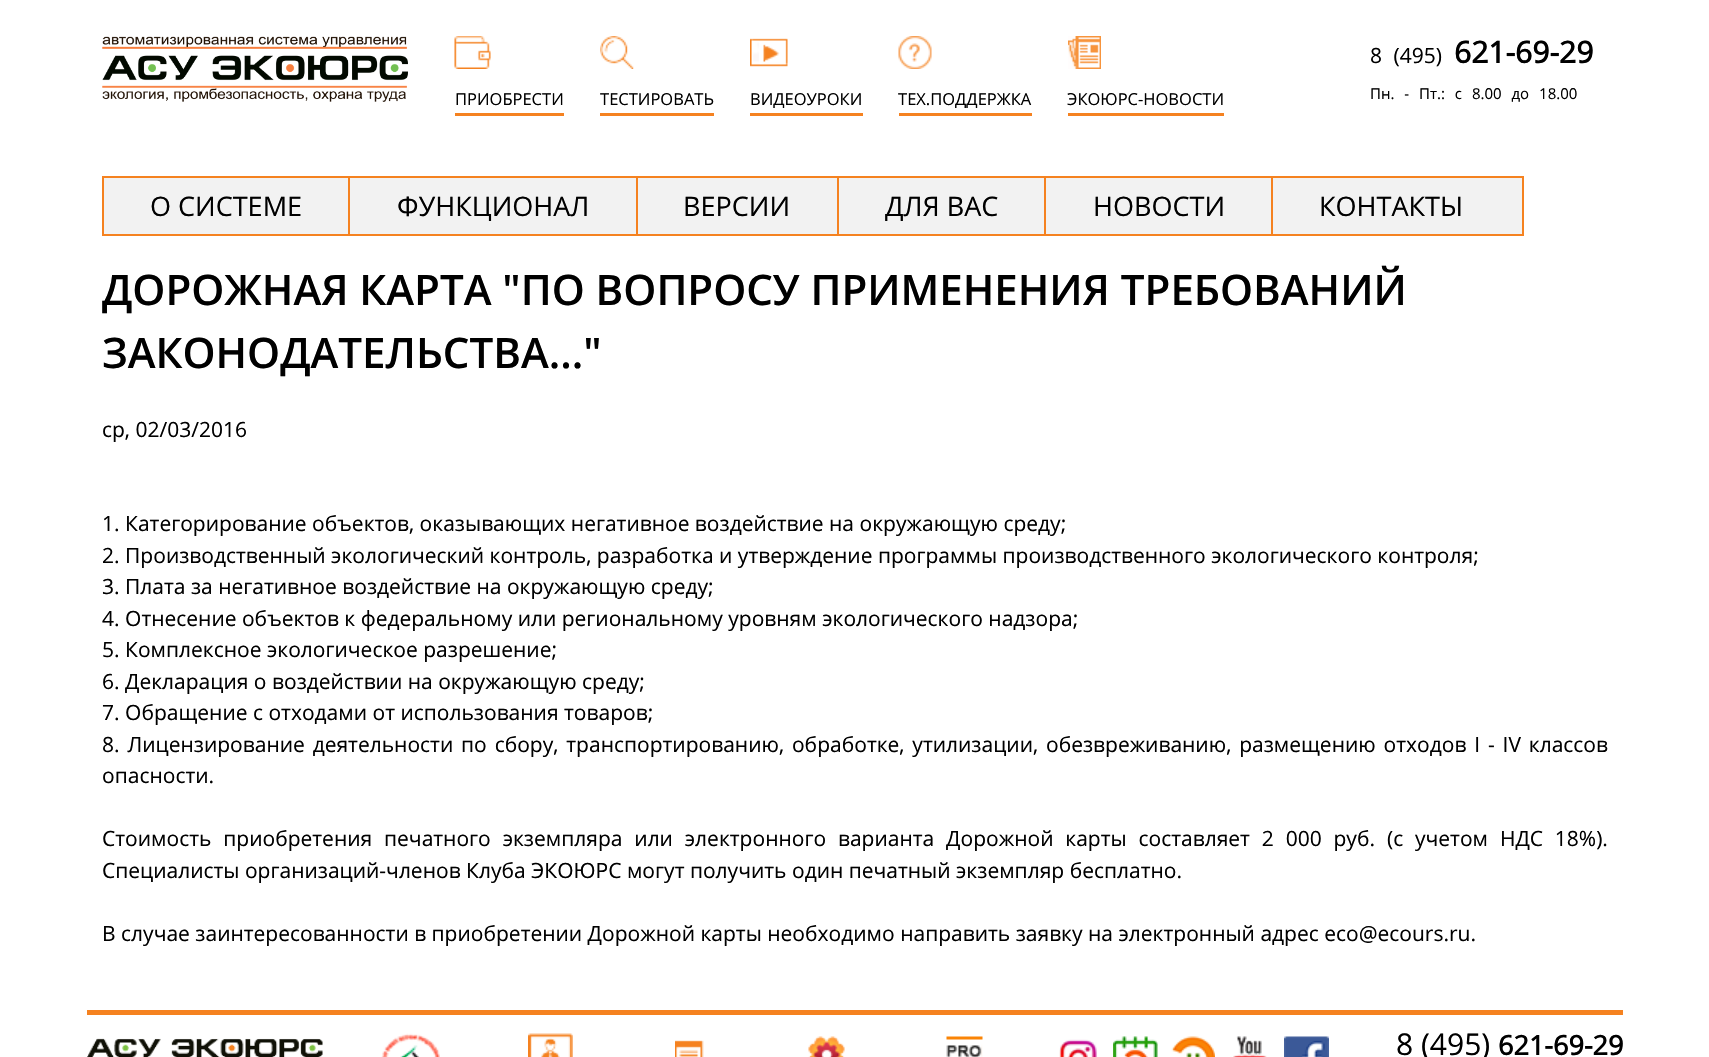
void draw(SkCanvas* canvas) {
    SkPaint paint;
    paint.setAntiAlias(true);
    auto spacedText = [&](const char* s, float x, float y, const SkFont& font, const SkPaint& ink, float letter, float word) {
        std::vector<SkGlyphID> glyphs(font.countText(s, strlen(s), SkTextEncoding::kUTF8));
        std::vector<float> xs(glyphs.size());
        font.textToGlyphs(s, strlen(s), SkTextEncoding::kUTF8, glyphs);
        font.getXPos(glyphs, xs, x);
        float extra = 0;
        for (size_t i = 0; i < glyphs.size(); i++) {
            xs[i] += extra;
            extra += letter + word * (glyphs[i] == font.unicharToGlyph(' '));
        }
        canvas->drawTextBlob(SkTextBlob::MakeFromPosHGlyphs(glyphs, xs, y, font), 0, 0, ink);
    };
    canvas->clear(0xFFFFFFFF);
    canvas->drawImageRect(SkImages::DeferredFromEncodedData(SkData::MakeFromFileName("img1.png")), SkRect::MakeXYWH(102, 36, 306, 66), SkSamplingOptions());
    canvas->drawImageRect(SkImages::DeferredFromEncodedData(SkData::MakeFromFileName("img2.png")), SkRect::MakeXYWH(454, 36, 37, 33), SkSamplingOptions());
    SkFont font1(fontMgr->matchFamilyStyle("Open Sans", SkFontStyle::Normal()), 16.5f);
    font1.setSubpixel(true);
    paint.setColor(0xFF000000);
    canvas->drawString("ПРИОБРЕСТИ", 455, 105, font1, paint);
    paint.setColor(0xFFF58220);
    canvas->drawRect(SkRect::MakeXYWH(455, 113, 109, 3), paint);
    canvas->drawImageRect(SkImages::DeferredFromEncodedData(SkData::MakeFromFileName("img3.png")), SkRect::MakeXYWH(600, 36, 34, 33), SkSamplingOptions());
    paint.setColor(0xFF000000);
    canvas->drawString("ТЕСТИРОВАТЬ", 600, 105, font1, paint);
    paint.setColor(0xFFF58220);
    canvas->drawRect(SkRect::MakeXYWH(600, 113, 114, 3), paint);
    canvas->drawImageRect(SkImages::DeferredFromEncodedData(SkData::MakeFromFileName("img4.png")), SkRect::MakeXYWH(750, 38, 38, 29), SkSamplingOptions());
    paint.setColor(0xFF000000);
    canvas->drawString("ВИДЕОУРОКИ", 750, 105, font1, paint);
    paint.setColor(0xFFF58220);
    canvas->drawRect(SkRect::MakeXYWH(750, 113, 113, 3), paint);
    canvas->drawImageRect(SkImages::DeferredFromEncodedData(SkData::MakeFromFileName("img5.png")), SkRect::MakeXYWH(898, 36, 34, 33), SkSamplingOptions());
    paint.setColor(0xFF000000);
    canvas->drawString("ТЕХ.ПОДДЕРЖКА", 898, 105, font1, paint);
    paint.setColor(0xFFF58220);
    canvas->drawRect(SkRect::MakeXYWH(899, 113, 133, 3), paint);
    canvas->drawImageRect(SkImages::DeferredFromEncodedData(SkData::MakeFromFileName("img6.png")), SkRect::MakeXYWH(1068, 36, 33, 33), SkSamplingOptions());
    paint.setColor(0xFF000000);
    canvas->drawString("ЭКОЮРС-НОВОСТИ", 1067, 105, font1, paint);
    paint.setColor(0xFFF58220);
    canvas->drawRect(SkRect::MakeXYWH(1068, 113, 156, 3), paint);
    SkFont font2(fontMgr->matchFamilyStyle("Open Sans", SkFontStyle::Normal()), 21);
    font2.setSubpixel(true);
    paint.setColor(0xFF000000);
    spacedText("8 (495)", 1370, 63, font2, paint, 0, 6);
    SkFont font3(fontMgr->matchFamilyStyle("Open Sans", SkFontStyle::Bold()), 30);
    font3.setSubpixel(true);
    canvas->drawString("621-69-29", 1454, 63, font3, paint);
    SkFont font4(fontMgr->matchFamilyStyle("Open Sans", SkFontStyle::Normal()), 15);
    font4.setSubpixel(true);
    spacedText("Пн. - Пт.: с 8.00 до 18.00", 1370, 99, font4, paint, 0, 6);
    paint.setColor(0xFFF2F2F2);
    canvas->drawRect(SkRect::MakeXYWH(104, 178, 244, 56), paint);
    paint.setColor(0xFFF58220);
    canvas->drawRect(SkRect::MakeXYWH(102, 176, 1169, 2), paint);
    canvas->drawRect(SkRect::MakeXYWH(102, 234, 1169, 2), paint);
    canvas->drawRect(SkRect::MakeXYWH(102, 176, 2, 60), paint);
    SkFont font5(fontMgr->matchFamilyStyle("Open Sans", SkFontStyle::Normal()), 27);
    font5.setSubpixel(true);
    paint.setColor(0xFF000000);
    canvas->drawString("О СИСТЕМЕ", 150, 216, font5, paint);
    paint.setColor(0xFFF2F2F2);
    canvas->drawRect(SkRect::MakeXYWH(350, 178, 286, 56), paint);
    paint.setColor(0xFFF58220);
    canvas->drawRect(SkRect::MakeXYWH(348, 176, 2, 60), paint);
    paint.setColor(0xFF000000);
    canvas->drawString("ФУНКЦИОНАЛ", 397, 216, font5, paint);
    paint.setColor(0xFFF2F2F2);
    canvas->drawRect(SkRect::MakeXYWH(638, 178, 199, 56), paint);
    paint.setColor(0xFFF58220);
    canvas->drawRect(SkRect::MakeXYWH(636, 176, 2, 60), paint);
    paint.setColor(0xFF000000);
    canvas->drawString("ВЕРСИИ", 683, 216, font5, paint);
    paint.setColor(0xFFF2F2F2);
    canvas->drawRect(SkRect::MakeXYWH(839, 178, 205, 56), paint);
    paint.setColor(0xFFF58220);
    canvas->drawRect(SkRect::MakeXYWH(837, 176, 2, 60), paint);
    paint.setColor(0xFF000000);
    canvas->drawString("ДЛЯ ВАС", 885, 216, font5, paint);
    paint.setColor(0xFFF2F2F2);
    canvas->drawRect(SkRect::MakeXYWH(1046, 178, 225, 56), paint);
    paint.setColor(0xFFF58220);
    canvas->drawRect(SkRect::MakeXYWH(1044, 176, 2, 60), paint);
    paint.setColor(0xFF000000);
    canvas->drawString("НОВОСТИ", 1093, 216, font5, paint);
    paint.setColor(0xFFF2F2F2);
    canvas->drawRect(SkRect::MakeXYWH(1272, 177, 251, 58), paint);
    paint.setStyle(SkPaint::kStroke_Style);
    paint.setStrokeWidth(2);
    paint.setColor(0xFFF58220);
    canvas->drawRect(SkRect::MakeXYWH(1272, 177, 251, 58), paint);
    paint.setStyle(SkPaint::kFill_Style);
    paint.setColor(0xFF000000);
    canvas->drawString("КОНТАКТЫ", 1319, 216, font5, paint);
    SkFont font6(fontMgr->matchFamilyStyle("Open Sans", SkFontStyle(600, SkFontStyle::kNormal_Width, SkFontStyle::kUpright_Slant)), 42);
    font6.setSubpixel(true);
    canvas->drawString("ДОРОЖНАЯ КАРТА \"ПО ВОПРОСУ ПРИМЕНЕНИЯ ТРЕБОВАНИЙ", 102, 305, font6, paint);
    canvas->drawString("ЗАКОНОДАТЕЛЬСТВА...\"", 102, 368, font6, paint);
    canvas->drawString("ср, 02/03/2016", 102, 437, font2, paint);
    canvas->drawString("1. Категорирование объектов, оказывающих негативное воздействие на окружающую среду;", 102, 531, font2, paint);
    canvas->drawString("2. Производственный экологический контроль, разработка и утверждение программы производственного экологического контроля;", 102, 563, font2, paint);
    canvas->drawString("3. Плата за негативное воздействие на окружающую среду;", 102, 594, font2, paint);
    canvas->drawString("4. Отнесение объектов к федеральному или региональному уровням экологического надзора;", 102, 626, font2, paint);
    canvas->drawString("5. Комплексное экологическое разрешение;", 102, 657, font2, paint);
    canvas->drawString("6. Декларация о воздействии на окружающую среду;", 102, 689, font2, paint);
    canvas->drawString("7. Обращение с отходами от использования товаров;", 102, 720, font2, paint);
    spacedText("8. Лицензирование деятельности по сбору, транспортированию, обработке, утилизации, обезвреживанию, размещению отходов I - IV классов", 102, 752, font2, paint, 0, 2.4f);
    canvas->drawString("опасности.", 102, 783, font2, paint);
    spacedText("Стоимость приобретения печатного экземпляра или электронного варианта Дорожной карты составляет 2 000 руб. (с учетом НДС 18%).", 102, 846, font2, paint, 0, 6.4f);
    canvas->drawString("Специалисты организаций-членов Клуба ЭКОЮРС могут получить один печатный экземпляр бесплатно.", 102, 878, font2, paint);
    canvas->drawString("В случае заинтересованности в приобретении Дорожной карты необходимо направить заявку на электронный адрес eco@ecours.ru.", 102, 941, font2, paint);
    paint.setColor(0xFFF58220);
    canvas->drawRect(SkRect::MakeXYWH(87, 1010, 1536, 5), paint);
    canvas->drawImageRect(SkImages::DeferredFromEncodedData(SkData::MakeFromFileName("img7.png")), SkRect::MakeXYWH(87, 1038, 236, 19), SkSamplingOptions());
    canvas->drawImageRect(SkImages::DeferredFromEncodedData(SkData::MakeFromFileName("img8.png")), SkRect::MakeXYWH(381, 1033, 59, 24), SkSamplingOptions());
    canvas->drawImageRect(SkImages::DeferredFromEncodedData(SkData::MakeFromFileName("img9.png")), SkRect::MakeXYWH(528, 1033, 45, 24), SkSamplingOptions());
    canvas->drawImageRect(SkImages::DeferredFromEncodedData(SkData::MakeFromFileName("img10.png")), SkRect::MakeXYWH(675, 1040, 29, 17), SkSamplingOptions());
    canvas->drawImageRect(SkImages::DeferredFromEncodedData(SkData::MakeFromFileName("img11.png")), SkRect::MakeXYWH(808, 1036, 37, 21), SkSamplingOptions());
    canvas->drawImageRect(SkImages::DeferredFromEncodedData(SkData::MakeFromFileName("img12.png")), SkRect::MakeXYWH(946, 1034, 37, 23), SkSamplingOptions());
    canvas->drawImageRect(SkImages::DeferredFromEncodedData(SkData::MakeFromFileName("img13.png")), SkRect::MakeXYWH(1059, 1039, 38, 18), SkSamplingOptions());
    canvas->drawImageRect(SkImages::DeferredFromEncodedData(SkData::MakeFromFileName("img14.png")), SkRect::MakeXYWH(1113, 1036, 45, 21), SkSamplingOptions());
    canvas->drawImageRect(SkImages::DeferredFromEncodedData(SkData::MakeFromFileName("img15.png")), SkRect::MakeXYWH(1171, 1036, 44, 21), SkSamplingOptions());
    canvas->drawImageRect(SkImages::DeferredFromEncodedData(SkData::MakeFromFileName("img16.png")), SkRect::MakeXYWH(1233, 1036, 34, 21), SkSamplingOptions());
    canvas->drawImageRect(SkImages::DeferredFromEncodedData(SkData::MakeFromFileName("img17.png")), SkRect::MakeXYWH(1284, 1036, 45, 21), SkSamplingOptions());
    SkFont font7(fontMgr->matchFamilyStyle("Open Sans", SkFontStyle::Normal()), 30);
    font7.setSubpixel(true);
    paint.setColor(0xFF000000);
    canvas->drawString("8 (495)", 1396, 1055, font7, paint);
    SkFont font8(fontMgr->matchFamilyStyle("Open Sans", SkFontStyle::Bold()), 27);
    font8.setSubpixel(true);
    canvas->drawString("621-69-29", 1498, 1055, font8, paint);
}
